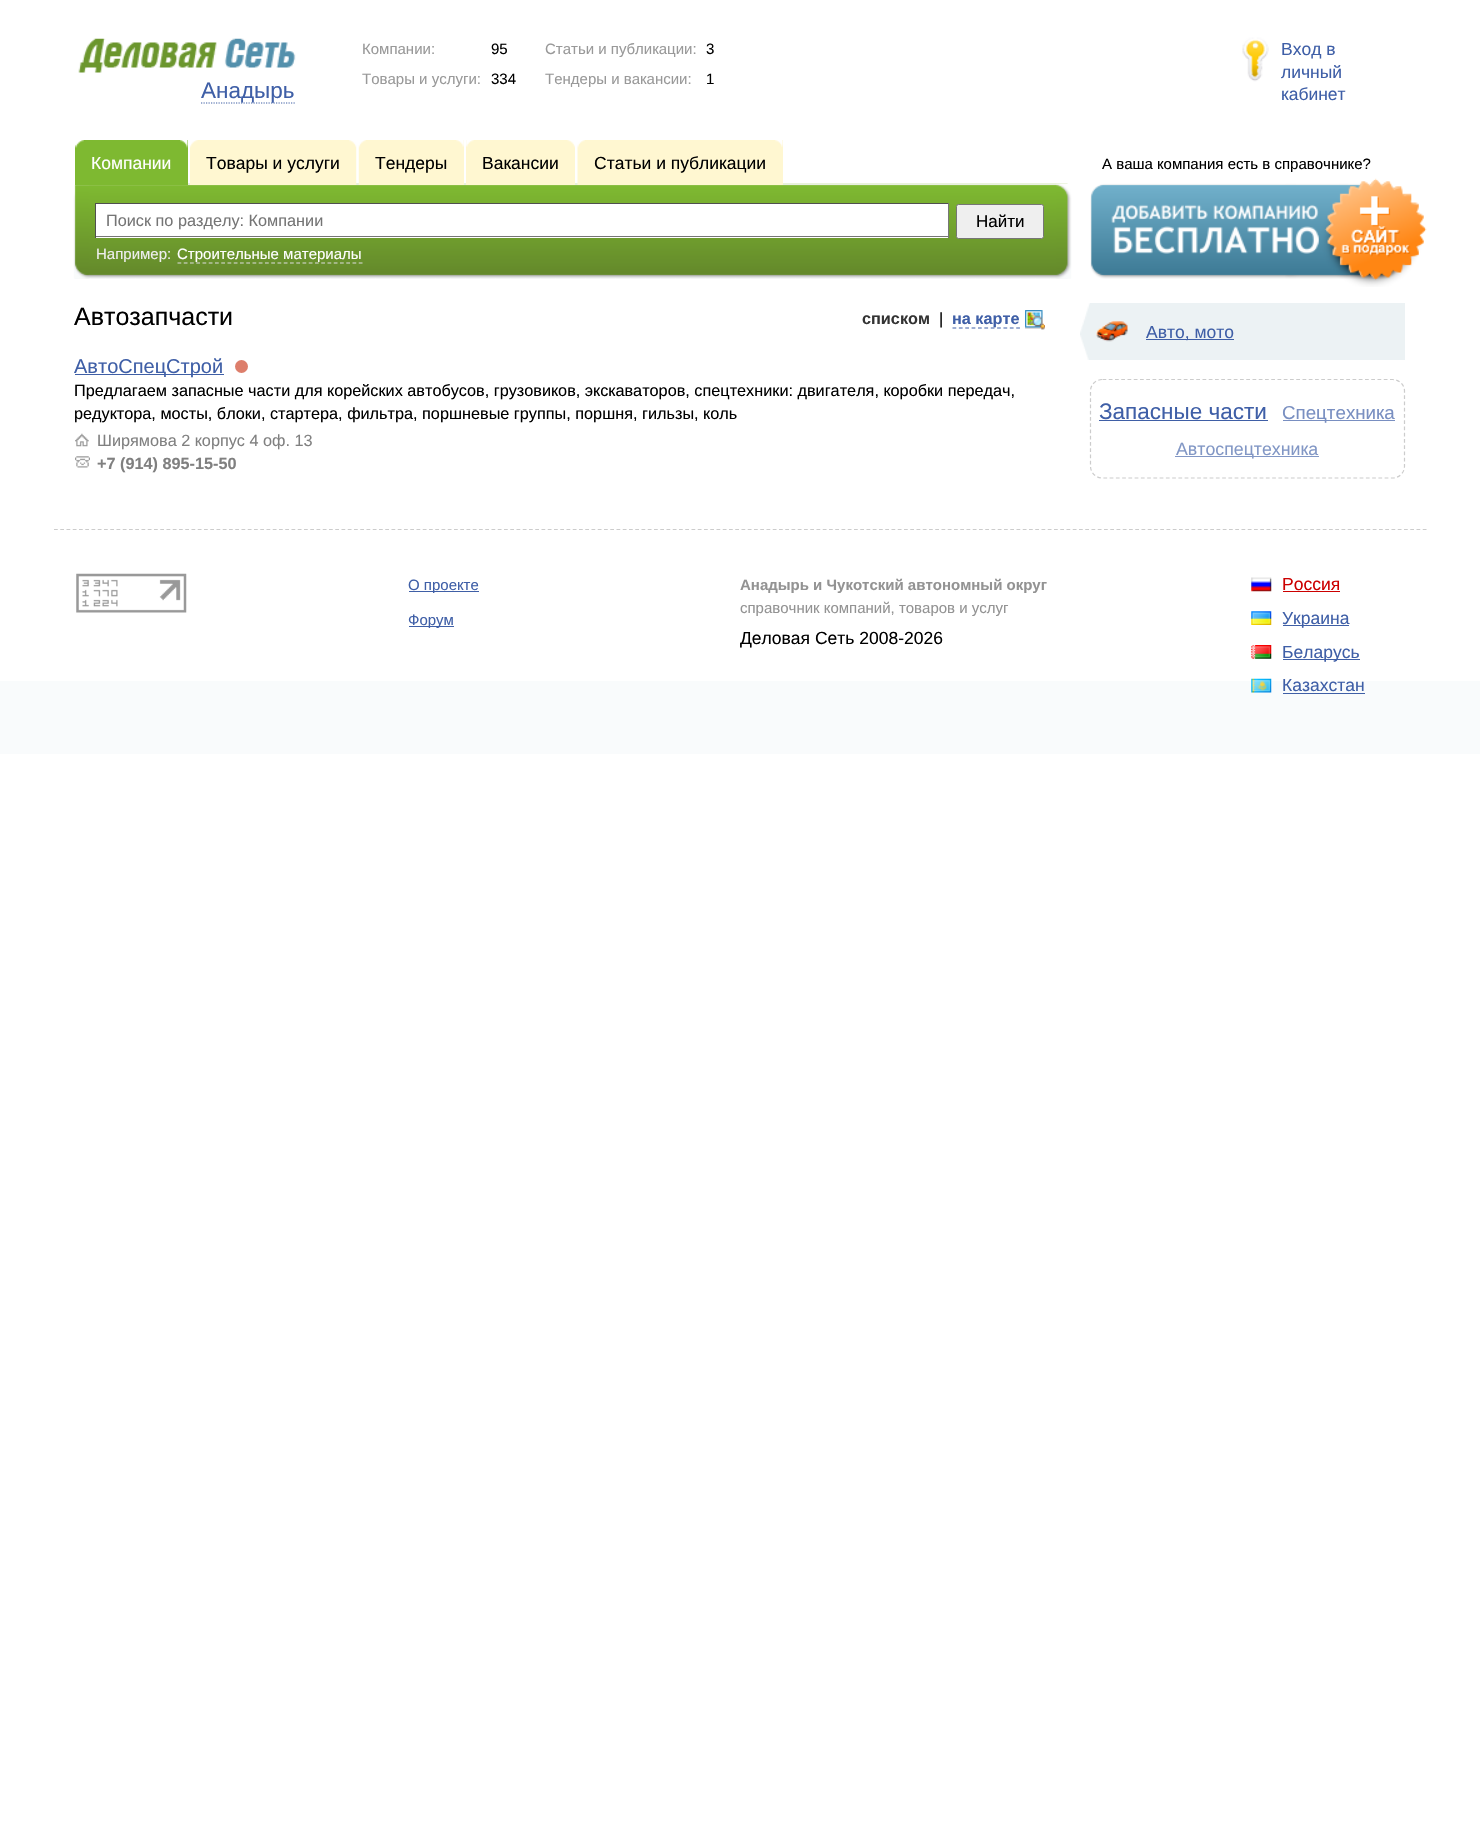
void draw(SkCanvas* canvas) {
    SkPaint paint;
    paint.setAntiAlias(true);
    canvas->clear(0xFFFFFFFF);
    SkFont font1(fontMgr->matchFamilyStyle("Liberation Sans", SkFontStyle::Normal()), 15);
    font1.setSubpixel(true);
    paint.setColor(0xFF999999);
    canvas->drawString("Компании:", 362, 54, font1, paint);
    paint.setColor(0xFF000000);
    canvas->drawString("95", 491, 54, font1, paint);
    paint.setColor(0xFF999999);
    canvas->drawString("Товары и услуги:", 362, 84, font1, paint);
    paint.setColor(0xFF000000);
    canvas->drawString("334", 491, 84, font1, paint);
    paint.setColor(0xFF999999);
    canvas->drawString("Статьи и публикации:", 545, 54, font1, paint);
    paint.setColor(0xFF000000);
    canvas->drawString("3", 706, 54, font1, paint);
    paint.setColor(0xFF999999);
    canvas->drawString("Тендеры и вакансии:", 545, 84, font1, paint);
    paint.setColor(0xFF000000);
    canvas->drawString("1", 706, 84, font1, paint);
    canvas->drawImageRect(SkImages::DeferredFromEncodedData(SkData::MakeFromFileName("img1.png")), SkRect::MakeXYWH(1242, 37, 27, 45), SkSamplingOptions());
    SkFont font2(fontMgr->matchFamilyStyle("Liberation Sans", SkFontStyle::Normal()), 17.5f);
    font2.setSubpixel(true);
    paint.setColor(0xFF3F5FA7);
    canvas->drawString("Вход в", 1281, 55, font2, paint);
    canvas->drawString("личный", 1281, 78, font2, paint);
    canvas->drawString("кабинет", 1281, 100, font2, paint);
    canvas->drawImageRect(SkImages::DeferredFromEncodedData(SkData::MakeFromFileName("img2.png")), SkRect::MakeXYWH(78, 38, 218, 35), SkSamplingOptions());
    paint.setStyle(SkPaint::kStroke_Style);
    paint.setStrokeWidth(1.2f);
    paint.setColor(0xFF3F5FA6);
    paint.setPathEffect(SkDashPathEffect::Make({{1.25f, 1.25f}}, 0));
    canvas->drawPath(SkPathBuilder().moveTo(201, 103).lineTo(295, 103).detach(), paint);
    paint.setPathEffect(nullptr);
    SkFont font3(fontMgr->matchFamilyStyle("Liberation Sans", SkFontStyle::Normal()), 22.5f);
    font3.setSubpixel(true);
    paint.setStyle(SkPaint::kFill_Style);
    paint.setColor(0xFF3F5FA7);
    canvas->drawString("Анадырь", 201, 98, font3, paint);
    canvas->drawImageRect(SkImages::DeferredFromEncodedData(SkData::MakeFromFileName("img13.png")), SkRect::MakeXYWH(75, 183, 993, 96), SkSamplingOptions());
    canvas->drawImageRect(SkImages::DeferredFromEncodedData(SkData::MakeFromFileName("img14.png")), SkRect::MakeXYWH(73, 183, 16, 96), SkSamplingOptions());
    paint.setColor(0xFF7EB931);
    canvas->drawRect(SkRect::MakeXYWH(75, 140, 113, 45), paint);
    canvas->drawImageRect(SkImages::DeferredFromEncodedData(SkData::MakeFromFileName("img3.png")), SkRect::MakeXYWH(180, 140, 8, 8), SkSamplingOptions());
    canvas->drawImageRect(SkImages::DeferredFromEncodedData(SkData::MakeFromFileName("img4.png")), SkRect::MakeXYWH(75, 140, 9, 8), SkSamplingOptions());
    paint.setColor(0xFFFFFFFF);
    canvas->drawString("Компании", 91, 169, font2, paint);
    paint.setColor(0xFFFFF7D1);
    canvas->drawRect(SkRect::MakeXYWH(190, 140, 159, 45), paint);
    canvas->drawImageRect(SkImages::DeferredFromEncodedData(SkData::MakeFromFileName("img5.png")), SkRect::MakeXYWH(349, 140, 8, 45), SkSamplingOptions());
    canvas->drawImageRect(SkImages::DeferredFromEncodedData(SkData::MakeFromFileName("img6.png")), SkRect::MakeXYWH(190, 140, 8, 8), SkSamplingOptions());
    paint.setColor(0xFF000000);
    canvas->drawString("Товары и услуги", 206, 169, font2, paint);
    paint.setColor(0xFFFFF7D1);
    canvas->drawRect(SkRect::MakeXYWH(366, 140, 98, 45), paint);
    canvas->drawImageRect(SkImages::DeferredFromEncodedData(SkData::MakeFromFileName("img7.png")), SkRect::MakeXYWH(456, 140, 8, 7), SkSamplingOptions());
    canvas->drawImageRect(SkImages::DeferredFromEncodedData(SkData::MakeFromFileName("img8.png")), SkRect::MakeXYWH(358, 140, 8, 45), SkSamplingOptions());
    paint.setColor(0xFF000000);
    canvas->drawString("Тендеры", 375, 169, font2, paint);
    paint.setColor(0xFFFFF7D1);
    canvas->drawRect(SkRect::MakeXYWH(466, 140, 109, 45), paint);
    canvas->drawImageRect(SkImages::DeferredFromEncodedData(SkData::MakeFromFileName("img9.png")), SkRect::MakeXYWH(567, 140, 8, 8), SkSamplingOptions());
    canvas->drawImageRect(SkImages::DeferredFromEncodedData(SkData::MakeFromFileName("img10.png")), SkRect::MakeXYWH(466, 140, 8, 7), SkSamplingOptions());
    paint.setColor(0xFF000000);
    canvas->drawString("Вакансии", 482, 169, font2, paint);
    paint.setColor(0xFFFFF7D1);
    canvas->drawRect(SkRect::MakeXYWH(585, 140, 198, 45), paint);
    canvas->drawImageRect(SkImages::DeferredFromEncodedData(SkData::MakeFromFileName("img11.png")), SkRect::MakeXYWH(775, 140, 8, 7), SkSamplingOptions());
    canvas->drawImageRect(SkImages::DeferredFromEncodedData(SkData::MakeFromFileName("img12.png")), SkRect::MakeXYWH(577, 140, 8, 45), SkSamplingOptions());
    paint.setColor(0xFF000000);
    canvas->drawString("Статьи и публикации", 594, 169, font2, paint);
    paint.setColor(0xFFFFFFFF);
    canvas->drawRect(SkRect::MakeXYWH(96, 204, 852, 34), paint);
    paint.setColor(0xFF4F4F4F);
    canvas->drawRect(SkRect::MakeXYWH(95, 203, 854, 1), paint);
    paint.setColor(0xFF767676);
    canvas->drawRect(SkRect::MakeXYWH(948, 203, 1, 35), paint);
    canvas->drawRect(SkRect::MakeXYWH(95, 236, 854, 1), paint);
    paint.setColor(0xFF4F4F4F);
    canvas->drawRect(SkRect::MakeXYWH(95, 203, 1, 35), paint);
    SkFont font4(fontMgr->matchFamilyStyle("Liberation Sans", SkFontStyle::Normal()), 16.25f);
    font4.setSubpixel(true);
    paint.setColor(0xFF757575);
    canvas->drawString("Поиск по разделу: Компании", 106, 226, font4, paint);
    paint.setColor(0xFFEFEFEF);
    canvas->drawRoundRect(SkRect::MakeXYWH(956.5f, 204.5f, 87, 34), 2, 2, paint);
    paint.setStyle(SkPaint::kStroke_Style);
    paint.setStrokeWidth(1);
    paint.setColor(0xFF767676);
    canvas->drawRoundRect(SkRect::MakeXYWH(956.5f, 204.5f, 87, 34), 2, 2, paint);
    SkFont font5(fontMgr->matchFamilyStyle("Liberation Sans", SkFontStyle::Normal()), 17);
    font5.setSubpixel(true);
    paint.setStyle(SkPaint::kFill_Style);
    paint.setColor(0xFF000000);
    canvas->drawString("Найти", 976, 227, font5, paint);
    canvas->drawImageRect(SkImages::DeferredFromEncodedData(SkData::MakeFromFileName("img15.png")), SkRect::MakeXYWH(1056, 183, 16, 96), SkSamplingOptions());
    paint.setColor(0xFFEEEEEE);
    canvas->drawString("Например:", 96, 259, font1, paint);
    paint.setStyle(SkPaint::kStroke_Style);
    paint.setStrokeWidth(1.2f);
    paint.setColor(0xFFDDDDDD);
    paint.setPathEffect(SkDashPathEffect::Make({{3.75f, 2.5f}}, 0));
    canvas->drawPath(SkPathBuilder().moveTo(177.5f, 263).lineTo(362.5f, 263).detach(), paint);
    paint.setPathEffect(nullptr);
    paint.setStyle(SkPaint::kFill_Style);
    paint.setColor(0xFFFFFFFF);
    canvas->drawString("Строительные материалы", 177, 259, font1, paint);
    paint.setColor(0xFF000000);
    canvas->drawString("А ваша компания есть в справочнике?", 1102, 169, font1, paint);
    canvas->drawImageRect(SkImages::DeferredFromEncodedData(SkData::MakeFromFileName("img16.png")), SkRect::MakeXYWH(1090, 178, 337, 109), SkSamplingOptions());
    SkFont font6(fontMgr->matchFamilyStyle("Liberation Sans", SkFontStyle::Normal()), 25);
    font6.setSubpixel(true);
    canvas->drawString("Автозапчасти", 74, 325, font6, paint);
    SkFont font7(fontMgr->matchFamilyStyle("Liberation Sans", SkFontStyle::Bold()), 16.25f);
    font7.setSubpixel(true);
    paint.setColor(0xFF333333);
    canvas->drawString("списком", 862, 324, font7, paint);
    paint.setColor(0xFF000000);
    canvas->drawString("|", 939, 324, font4, paint);
    paint.setStyle(SkPaint::kStroke_Style);
    paint.setColor(0xFF3F5FA7);
    paint.setPathEffect(SkDashPathEffect::Make({{3.75f, 2.62f}}, 0));
    canvas->drawPath(SkPathBuilder().moveTo(952.5f, 328).lineTo(1020, 328).detach(), paint);
    paint.setPathEffect(nullptr);
    paint.setStyle(SkPaint::kFill_Style);
    canvas->drawString("на карте", 952, 324, font7, paint);
    canvas->drawImageRect(SkImages::DeferredFromEncodedData(SkData::MakeFromFileName("img17.png")), SkRect::MakeXYWH(1025, 310, 20, 20), SkSamplingOptions());
    paint.setColor(0xFF3F5FA6);
    canvas->drawRect(SkRect::MakeXYWH(75, 374, 149, 1), paint);
    SkFont font8(fontMgr->matchFamilyStyle("Liberation Sans", SkFontStyle::Normal()), 20);
    font8.setSubpixel(true);
    paint.setColor(0xFF3F5FA7);
    canvas->drawString("АвтоСпецСтрой", 74, 373, font8, paint);
    paint.setColor(0xFFDD7E6B);
    canvas->drawCircle(241.5f, 366.5f, 6.5f, paint);
    paint.setColor(0xFF000000);
    canvas->drawString("Предлагаем запасные части для корейских автобусов, грузовиков, экскаваторов, спецтехники: двигателя, коробки передач,", 74, 396, font4, paint);
    canvas->drawString("редуктора, мосты, блоки, стартера, фильтра, поршневые группы, поршня, гильзы, коль", 74, 419, font4, paint);
    canvas->drawImageRect(SkImages::DeferredFromEncodedData(SkData::MakeFromFileName("img18.png")), SkRect::MakeXYWH(75, 433, 14, 14), SkSamplingOptions());
    paint.setColor(0xFF808080);
    canvas->drawString("Ширямова 2 корпус 4 оф. 13", 97, 446, font4, paint);
    canvas->drawImageRect(SkImages::DeferredFromEncodedData(SkData::MakeFromFileName("img19.png")), SkRect::MakeXYWH(75, 456, 15, 12), SkSamplingOptions());
    canvas->drawString("+7 (914) 895-15-50", 97, 469, font7, paint);
    paint.setColor(0xFFECF2F4);
    canvas->drawRect(SkRect::MakeXYWH(1090, 303, 315, 57), paint);
    canvas->drawImageRect(SkImages::DeferredFromEncodedData(SkData::MakeFromFileName("img20.png")), SkRect::MakeXYWH(1080, 303, 10, 57), SkSamplingOptions());
    canvas->drawImageRect(SkImages::DeferredFromEncodedData(SkData::MakeFromFileName("img21.png")), SkRect::MakeXYWH(1096, 321, 32, 21), SkSamplingOptions());
    paint.setColor(0xFF3F5FA6);
    canvas->drawRect(SkRect::MakeXYWH(1146, 339, 88, 1), paint);
    paint.setColor(0xFF3F5FA7);
    canvas->drawString("Авто, мото", 1146, 338, font2, paint);
    paint.setStyle(SkPaint::kStroke_Style);
    paint.setColor(0xFFCCCCCC);
    paint.setPathEffect(SkDashPathEffect::Make({{3.75f, 2.5f}}, 0));
    canvas->drawPath(SkPathBuilder().moveTo(1102.5f, 379.5f).lineTo(1392.5f, 379.5f).cubicTo(1399, 379.5f, 1404.5f, 384.5f, 1404.5f, 391).lineTo(1404.5f, 466).cubicTo(1404.5f, 473, 1399, 478, 1392.5f, 478).lineTo(1102.5f, 478).cubicTo(1096, 478, 1090.5f, 473, 1090.5f, 466).lineTo(1090.5f, 391).cubicTo(1090.5f, 384.5f, 1096, 379.5f, 1102.5f, 379.5f).close().detach(), paint);
    paint.setPathEffect(nullptr);
    paint.setStyle(SkPaint::kFill_Style);
    paint.setColor(0xFF3F5FA7);
    canvas->drawString("Запасные части", 1099, 419, font3, paint);
    paint.setColor(0xFF3F5FA6);
    canvas->drawRect(SkRect::MakeXYWH(1099, 420, 169, 1), paint);
    paint.setColor(0xFF798FC1);
    canvas->drawRect(SkRect::MakeXYWH(1283, 420, 112, 1), paint);
    SkFont font9(fontMgr->matchFamilyStyle("Liberation Sans", SkFontStyle::Normal()), 18.75f);
    font9.setSubpixel(true);
    canvas->drawString("Спецтехника", 1282, 419, font9, paint);
    paint.setColor(0xFF8297C5);
    canvas->drawRect(SkRect::MakeXYWH(1175, 456, 144, 1), paint);
    SkFont font10(fontMgr->matchFamilyStyle("Liberation Sans", SkFontStyle::Normal()), 17.75f);
    font10.setSubpixel(true);
    canvas->drawString("Автоспецтехника", 1176, 455, font10, paint);
    paint.setColor(0xFFF9FBFC);
    canvas->drawRect(SkRect::MakeXYWH(0, 681, 1480, 73), paint);
    paint.setStyle(SkPaint::kStroke_Style);
    paint.setColor(0xFFCCCCCC);
    paint.setPathEffect(SkDashPathEffect::Make({{3.75f, 2.5f}}, 0));
    canvas->drawPath(SkPathBuilder().moveTo(54, 529.5f).lineTo(1427.5f, 529.5f).detach(), paint);
    paint.setPathEffect(nullptr);
    canvas->drawImageRect(SkImages::DeferredFromEncodedData(SkData::MakeFromFileName("img22.png")), SkRect::MakeXYWH(76, 573, 111, 40), SkSamplingOptions());
    paint.setStyle(SkPaint::kFill_Style);
    paint.setColor(0xFF3F5FA6);
    canvas->drawRect(SkRect::MakeXYWH(409, 591, 70, 1), paint);
    paint.setColor(0xFF3F5FA7);
    canvas->drawString("О проекте", 408, 590, font1, paint);
    paint.setColor(0xFF3F5FA6);
    canvas->drawRect(SkRect::MakeXYWH(409, 626, 45, 1), paint);
    paint.setColor(0xFF3F5FA7);
    canvas->drawString("Форум", 408, 625, font1, paint);
    SkFont font11(fontMgr->matchFamilyStyle("Liberation Sans", SkFontStyle::Bold()), 15);
    font11.setSubpixel(true);
    paint.setColor(0xFF939393);
    canvas->drawString("Анадырь и Чукотский автономный округ", 740, 590, font11, paint);
    canvas->drawString("справочник компаний, товаров и услуг", 740, 613, font1, paint);
    paint.setColor(0xFF000000);
    canvas->drawString("Деловая Сеть 2008-2026", 740, 644, font2, paint);
    canvas->drawImageRect(SkImages::DeferredFromEncodedData(SkData::MakeFromFileName("img23.png")), SkRect::MakeXYWH(1251, 577, 21, 15), SkSamplingOptions());
    paint.setColor(0xFFCC0000);
    canvas->drawString("Россия", 1282, 590, font2, paint);
    canvas->drawRect(SkRect::MakeXYWH(1283, 591, 57, 1), paint);
    canvas->drawImageRect(SkImages::DeferredFromEncodedData(SkData::MakeFromFileName("img24.png")), SkRect::MakeXYWH(1251, 611, 21, 14), SkSamplingOptions());
    paint.setColor(0xFF3F5FA6);
    canvas->drawRect(SkRect::MakeXYWH(1283, 625, 66, 1), paint);
    paint.setColor(0xFF3F5FA7);
    canvas->drawString("Украина", 1282, 624, font2, paint);
    canvas->drawImageRect(SkImages::DeferredFromEncodedData(SkData::MakeFromFileName("img25.png")), SkRect::MakeXYWH(1251, 645, 21, 14), SkSamplingOptions());
    paint.setColor(0xFF3F5FA6);
    canvas->drawRect(SkRect::MakeXYWH(1283, 659, 77, 1), paint);
    paint.setColor(0xFF3F5FA7);
    canvas->drawString("Беларусь", 1282, 658, font2, paint);
    canvas->drawImageRect(SkImages::DeferredFromEncodedData(SkData::MakeFromFileName("img26.png")), SkRect::MakeXYWH(1251, 678, 21, 15), SkSamplingOptions());
    canvas->drawString("Казахстан", 1282, 691, font2, paint);
    paint.setColor(0xFF3F5FA6);
    canvas->drawRect(SkRect::MakeXYWH(1283, 693, 82, 1), paint);
}
